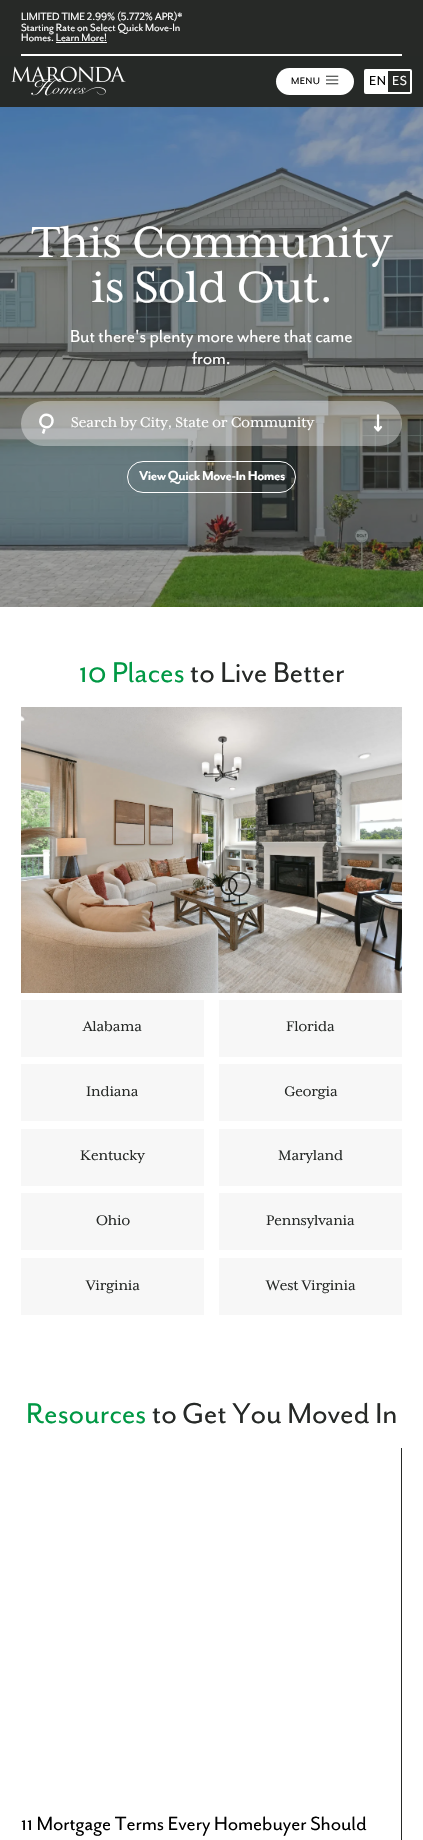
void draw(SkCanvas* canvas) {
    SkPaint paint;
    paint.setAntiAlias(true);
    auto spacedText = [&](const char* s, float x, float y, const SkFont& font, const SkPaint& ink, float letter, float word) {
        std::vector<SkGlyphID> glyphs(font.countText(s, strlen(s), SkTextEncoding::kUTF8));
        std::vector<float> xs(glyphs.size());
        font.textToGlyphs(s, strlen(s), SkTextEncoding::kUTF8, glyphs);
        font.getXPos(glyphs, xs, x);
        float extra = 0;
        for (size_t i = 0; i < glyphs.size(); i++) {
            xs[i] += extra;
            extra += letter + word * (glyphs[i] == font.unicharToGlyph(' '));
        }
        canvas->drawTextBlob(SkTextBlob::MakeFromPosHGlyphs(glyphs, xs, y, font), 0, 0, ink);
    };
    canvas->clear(0xFFFFFFFF);
    paint.setColor(0xFF262927);
    canvas->drawRect(SkRect::MakeXYWH(0, 56, 423, 51), paint);
    paint.setColor(0xFF272927);
    canvas->drawRect(SkRect::MakeXYWH(0, 0, 423, 56), paint);
    SkFont font1(fontMgr->matchFamilyStyle("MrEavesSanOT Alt", SkFontStyle::Normal()), 12);
    font1.setSubpixel(true);
    paint.setColor(0xFFFFFFFF);
    spacedText("LIMITED TIME 2.99% (5.772% APR)*", 21, 20, font1, paint, -0.1f, 0);
    SkFont font2(fontMgr->matchFamilyStyle("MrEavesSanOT", SkFontStyle::Normal()), 12);
    font2.setSubpixel(true);
    spacedText("Starting Rate on Select Quick Move-In", 21, 31, font2, paint, -0.1f, 0);
    spacedText("Homes. Learn More!", 21, 41, font2, paint, -0.1f, 0);
    canvas->drawRect(SkRect::MakeXYWH(56, 42, 51, 1), paint);
    canvas->drawRect(SkRect::MakeXYWH(21, 54, 381, 2), paint);
    canvas->drawImageRect(SkImages::DeferredFromEncodedData(SkData::MakeFromFileName("img1.png")), SkRect::MakeXYWH(11, 66, 115, 30), SkSamplingOptions());
    canvas->drawRoundRect(SkRect::MakeXYWH(276, 68, 78, 27), 13.5f, 13.5f, paint);
    SkFont font3(fontMgr->matchFamilyStyle("MrEavesSanOT", SkFontStyle::Normal()), 11);
    font3.setSubpixel(true);
    paint.setColor(0xFF000000);
    spacedText("MENU", 291, 84, font3, paint, 0.5f, 0);
    canvas->drawImageRect(SkImages::DeferredFromEncodedData(SkData::MakeFromFileName("img2.png")), SkRect::MakeXYWH(326, 75, 13, 10), SkSamplingOptions());
    paint.setStyle(SkPaint::kStroke_Style);
    paint.setStrokeWidth(2);
    paint.setColor(0xFFFFFFFF);
    canvas->drawRoundRect(SkRect::MakeXYWH(365, 70, 46, 23), 1, 1, paint);
    paint.setStyle(SkPaint::kFill_Style);
    canvas->drawRect(SkRect::MakeXYWH(366, 71, 22, 21), paint);
    SkFont font4(fontMgr->matchFamilyStyle("MrEavesSanOT", SkFontStyle::Normal()), 15);
    font4.setSubpixel(true);
    spacedText("ES", 392, 85, font4, paint, 0.5f, 0);
    paint.setColor(0xFF000000);
    spacedText("EN", 369, 85, font4, paint, 0.5f, 0);
    canvas->drawImageRect(SkImages::DeferredFromEncodedData(SkData::MakeFromFileName("img3.png")), SkRect::MakeXYWH(0, 107, 423, 500), SkSamplingOptions());
    SkFont font5(fontMgr->matchFamilyStyle("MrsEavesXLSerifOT", SkFontStyle::Normal()), 50);
    font5.setSubpixel(true);
    paint.setColor(0xFFFFFFFF);
    spacedText("This Community", 32, 257, font5, paint, -0.1f, 0);
    spacedText("is Sold Out.", 91, 302, font5, paint, -0.1f, 0);
    SkFont font6(fontMgr->matchFamilyStyle("MrEavesSanOT", SkFontStyle::Normal()), 20);
    font6.setSubpixel(true);
    spacedText("But there's plenty more where that came", 70, 342, font6, paint, -0.1f, 0);
    spacedText("from.", 192, 364, font6, paint, -0.1f, 0);
    paint.setColor(0x5EFFFFFF);
    canvas->drawRoundRect(SkRect::MakeXYWH(21, 401, 381, 45), 22.5f, 22.5f, paint);
    paint.setStyle(SkPaint::kStroke_Style);
    paint.setStrokeWidth(2.5f);
    paint.setColor(0xFFFFFFFF);
    canvas->drawPath(SkPathBuilder().moveTo(48, 415).cubicTo(56, 417, 52.5f, 429, 45, 427).cubicTo(37, 425, 40, 413, 48, 415).close().moveTo(44.5f, 429).lineTo(43, 433.5f).detach(), paint);
    SkFont font7(fontMgr->matchFamilyStyle("MrsEavesXLSerifOT", SkFontStyle::Normal()), 16);
    font7.setSubpixel(true);
    paint.setStyle(SkPaint::kFill_Style);
    canvas->drawString("Search by City, State or Community", 71, 427, font7, paint);
    paint.setStyle(SkPaint::kStroke_Style);
    paint.setStrokeWidth(2.3f);
    paint.setStrokeCap(SkPaint::kRound_Cap);
    canvas->drawPath(SkPathBuilder().moveTo(378, 415.5f).lineTo(378, 429.5f).detach(), paint);
    paint.setStrokeJoin(SkPaint::kRound_Join);
    canvas->drawPath(SkPathBuilder().moveTo(381, 427).lineTo(378, 430.5f).lineTo(375, 427).detach(), paint);
    paint.setStrokeWidth(1);
    paint.setStrokeCap(SkPaint::kButt_Cap);
    paint.setStrokeJoin(SkPaint::kMiter_Join);
    canvas->drawRoundRect(SkRect::MakeXYWH(127.5f, 461.5f, 168, 31), 15.5f, 15.5f, paint);
    SkFont font8(fontMgr->matchFamilyStyle("MrEavesSanOT", SkFontStyle::Bold()), 15);
    font8.setSubpixel(true);
    paint.setStyle(SkPaint::kFill_Style);
    spacedText("View Quick Move-In Homes", 139, 480, font8, paint, -0.45f, 0);
    SkFont font9(fontMgr->matchFamilyStyle("MrEavesSanOT", SkFontStyle::Normal()), 33);
    font9.setSubpixel(true);
    paint.setColor(0xFF009844);
    spacedText("10 Places", 79, 682, font9, paint, -0.1f, 0);
    paint.setColor(0xFF262927);
    spacedText("to Live Better", 190, 682, font9, paint, -0.1f, 0);
    canvas->drawImageRect(SkImages::DeferredFromEncodedData(SkData::MakeFromFileName("img4.png")), SkRect::MakeXYWH(21, 707, 381, 286), SkSamplingOptions());
    paint.setColor(0xFFF7F7F7);
    canvas->drawRect(SkRect::MakeXYWH(21, 1000, 183, 57), paint);
    paint.setColor(0xFF262927);
    spacedText("Alabama", 83, 1031, font7, paint, -0.1f, 0);
    paint.setColor(0xFFF7F7F7);
    canvas->drawRect(SkRect::MakeXYWH(219, 1000, 183, 57), paint);
    paint.setColor(0xFF262927);
    spacedText("Florida", 286, 1031, font7, paint, -0.1f, 0);
    paint.setColor(0xFFF7F7F7);
    canvas->drawRect(SkRect::MakeXYWH(21, 1064, 183, 57), paint);
    paint.setColor(0xFF262927);
    spacedText("Indiana", 86, 1096, font7, paint, -0.1f, 0);
    paint.setColor(0xFFF7F7F7);
    canvas->drawRect(SkRect::MakeXYWH(219, 1064, 183, 57), paint);
    paint.setColor(0xFF262927);
    spacedText("Georgia", 284, 1096, font7, paint, -0.1f, 0);
    paint.setColor(0xFFF7F7F7);
    canvas->drawRect(SkRect::MakeXYWH(21, 1129, 183, 57), paint);
    paint.setColor(0xFF262927);
    spacedText("Kentucky", 80, 1160, font7, paint, -0.1f, 0);
    paint.setColor(0xFFF7F7F7);
    canvas->drawRect(SkRect::MakeXYWH(219, 1129, 183, 57), paint);
    paint.setColor(0xFF262927);
    spacedText("Maryland", 278, 1160, font7, paint, -0.1f, 0);
    paint.setColor(0xFFF7F7F7);
    canvas->drawRect(SkRect::MakeXYWH(21, 1193, 183, 57), paint);
    paint.setColor(0xFF262927);
    spacedText("Ohio", 96, 1225, font7, paint, -0.1f, 0);
    paint.setColor(0xFFF7F7F7);
    canvas->drawRect(SkRect::MakeXYWH(219, 1193, 183, 57), paint);
    paint.setColor(0xFF262927);
    spacedText("Pennsylvania", 266, 1225, font7, paint, -0.1f, 0);
    paint.setColor(0xFFF7F7F7);
    canvas->drawRect(SkRect::MakeXYWH(21, 1258, 183, 57), paint);
    paint.setColor(0xFF262927);
    spacedText("Virginia", 86, 1290, font7, paint, -0.1f, 0);
    paint.setColor(0xFFF7F7F7);
    canvas->drawRect(SkRect::MakeXYWH(219, 1258, 183, 57), paint);
    paint.setColor(0xFF262927);
    spacedText("West Virginia", 266, 1290, font7, paint, -0.1f, 0);
    paint.setColor(0xFF009844);
    spacedText("Resources", 26, 1423, font9, paint, -0.1f, 0);
    paint.setColor(0xFF262927);
    spacedText("to Get You Moved In", 152, 1423, font9, paint, -0.1f, 0);
    canvas->drawRect(SkRect::MakeXYWH(401, 1448, 1, 392), paint);
    SkFont font10(fontMgr->matchFamilyStyle("MrEavesSanOT", SkFontStyle::Normal()), 22);
    font10.setSubpixel(true);
    paint.setColor(0xFF000000);
    spacedText("11 Mortgage Terms Every Homebuyer Should", 21, 1830, font10, paint, -0.1f, 0);
}
